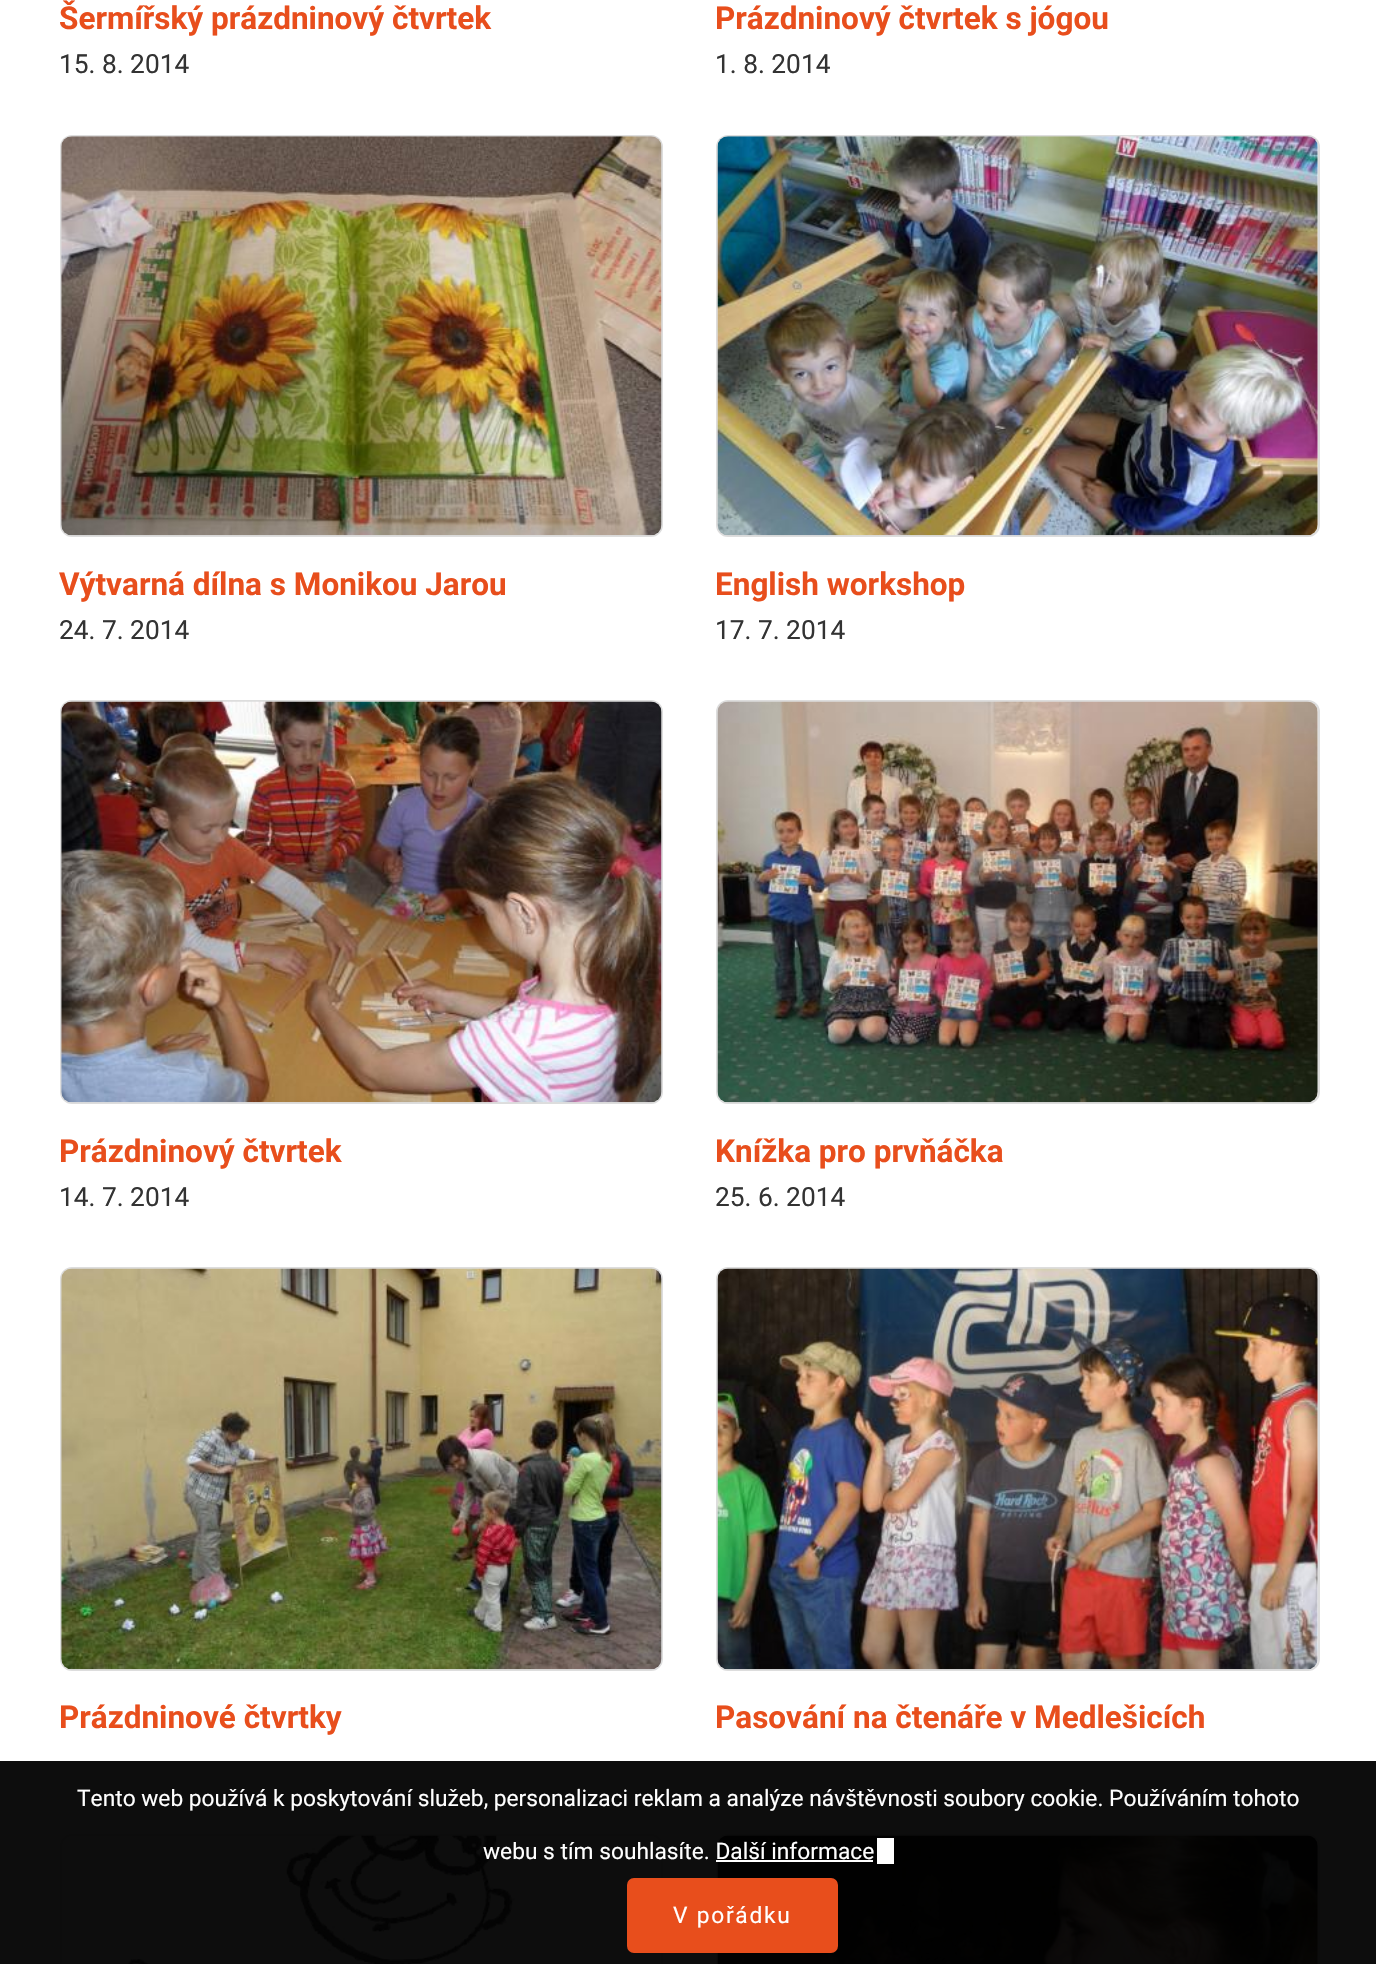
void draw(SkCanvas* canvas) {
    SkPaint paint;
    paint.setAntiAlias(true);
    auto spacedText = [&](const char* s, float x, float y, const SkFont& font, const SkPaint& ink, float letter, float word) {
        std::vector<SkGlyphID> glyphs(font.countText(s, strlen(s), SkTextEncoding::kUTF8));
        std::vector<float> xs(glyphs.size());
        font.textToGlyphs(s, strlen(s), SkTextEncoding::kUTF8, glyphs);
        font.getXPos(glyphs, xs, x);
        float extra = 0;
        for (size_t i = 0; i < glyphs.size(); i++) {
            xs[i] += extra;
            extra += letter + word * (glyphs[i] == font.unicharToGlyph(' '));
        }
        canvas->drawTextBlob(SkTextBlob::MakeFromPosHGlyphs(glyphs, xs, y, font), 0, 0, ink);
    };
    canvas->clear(0xFFFFFFFF);
    SkFont font1(fontMgr->matchFamilyStyle("Roboto", SkFontStyle::Bold()), 31.5f);
    font1.setSubpixel(true);
    paint.setColor(0xFFE84E1C);
    canvas->drawString("Šermířský prázdninový čtvrtek", 59, 29, font1, paint);
    SkFont font2(fontMgr->matchFamilyStyle("Roboto", SkFontStyle::Normal()), 26.25f);
    font2.setSubpixel(true);
    paint.setColor(0xFF333333);
    canvas->drawString("15. 8. 2014", 59, 73, font2, paint);
    paint.setColor(0xFFE84E1C);
    canvas->drawString("Prázdninový čtvrtek s jógou", 715, 29, font1, paint);
    paint.setColor(0xFF333333);
    canvas->drawString("1. 8. 2014", 715, 73, font2, paint);
    paint.setStyle(SkPaint::kStroke_Style);
    paint.setStrokeWidth(2);
    paint.setColor(0xFFDDDDDD);
    canvas->drawRoundRect(SkRect::MakeXYWH(61, 136, 601, 400), 11, 11, paint);
    canvas->drawImageRect(SkImages::DeferredFromEncodedData(SkData::MakeFromFileName("img1.png")), SkRect::MakeXYWH(61, 136, 601, 400), SkSamplingOptions());
    paint.setStyle(SkPaint::kFill_Style);
    paint.setColor(0xFFE84E1C);
    canvas->drawString("Výtvarná dílna s Monikou Jarou", 59, 595, font1, paint);
    paint.setColor(0xFF333333);
    canvas->drawString("24. 7. 2014", 59, 639, font2, paint);
    paint.setStyle(SkPaint::kStroke_Style);
    paint.setColor(0xFFDDDDDD);
    canvas->drawRoundRect(SkRect::MakeXYWH(717, 136, 602, 400), 11, 11, paint);
    canvas->drawImageRect(SkImages::DeferredFromEncodedData(SkData::MakeFromFileName("img2.png")), SkRect::MakeXYWH(717, 136, 601, 400), SkSamplingOptions());
    paint.setStyle(SkPaint::kFill_Style);
    paint.setColor(0xFFE84E1C);
    canvas->drawString("English workshop", 715, 595, font1, paint);
    paint.setColor(0xFF333333);
    canvas->drawString("17. 7. 2014", 715, 639, font2, paint);
    paint.setStyle(SkPaint::kStroke_Style);
    paint.setColor(0xFFDDDDDD);
    canvas->drawRoundRect(SkRect::MakeXYWH(61, 701, 601, 402), 11, 11, paint);
    canvas->drawImageRect(SkImages::DeferredFromEncodedData(SkData::MakeFromFileName("img3.png")), SkRect::MakeXYWH(61, 701, 601, 402), SkSamplingOptions());
    paint.setStyle(SkPaint::kFill_Style);
    paint.setColor(0xFFE84E1C);
    canvas->drawString("Prázdninový čtvrtek", 59, 1162, font1, paint);
    paint.setColor(0xFF333333);
    canvas->drawString("14. 7. 2014", 59, 1206, font2, paint);
    paint.setStyle(SkPaint::kStroke_Style);
    paint.setColor(0xFFDDDDDD);
    canvas->drawRoundRect(SkRect::MakeXYWH(717, 701, 602, 402), 11, 11, paint);
    canvas->drawImageRect(SkImages::DeferredFromEncodedData(SkData::MakeFromFileName("img4.png")), SkRect::MakeXYWH(717, 701, 601, 402), SkSamplingOptions());
    paint.setStyle(SkPaint::kFill_Style);
    paint.setColor(0xFFE84E1C);
    canvas->drawString("Knížka pro prvňáčka", 715, 1162, font1, paint);
    paint.setColor(0xFF333333);
    canvas->drawString("25. 6. 2014", 715, 1206, font2, paint);
    paint.setStyle(SkPaint::kStroke_Style);
    paint.setColor(0xFFDDDDDD);
    canvas->drawRoundRect(SkRect::MakeXYWH(61, 1268, 601, 402), 11, 11, paint);
    canvas->drawImageRect(SkImages::DeferredFromEncodedData(SkData::MakeFromFileName("img5.png")), SkRect::MakeXYWH(61, 1268, 601, 402), SkSamplingOptions());
    paint.setStyle(SkPaint::kFill_Style);
    paint.setColor(0xFFE84E1C);
    canvas->drawString("Prázdninové čtvrtky", 59, 1728, font1, paint);
    paint.setStyle(SkPaint::kStroke_Style);
    paint.setColor(0xFFDDDDDD);
    canvas->drawRoundRect(SkRect::MakeXYWH(717, 1268, 602, 402), 11, 11, paint);
    canvas->drawImageRect(SkImages::DeferredFromEncodedData(SkData::MakeFromFileName("img6.png")), SkRect::MakeXYWH(717, 1268, 601, 402), SkSamplingOptions());
    paint.setStyle(SkPaint::kFill_Style);
    paint.setColor(0xFFE84E1C);
    canvas->drawString("Pasování na čtenáře v Medlešicích", 715, 1728, font1, paint);
    paint.setStyle(SkPaint::kStroke_Style);
    paint.setColor(0xFFDDDDDD);
    canvas->drawRoundRect(SkRect::MakeXYWH(61, 1835, 601, 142), 11, 11, paint);
    canvas->drawImageRect(SkImages::DeferredFromEncodedData(SkData::MakeFromFileName("img7.png")), SkRect::MakeXYWH(127, 1835, 388, 129), SkSamplingOptions());
    canvas->drawRoundRect(SkRect::MakeXYWH(717, 1835, 602, 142), 11, 11, paint);
    canvas->drawImageRect(SkImages::DeferredFromEncodedData(SkData::MakeFromFileName("img8.png")), SkRect::MakeXYWH(717, 1835, 601, 129), SkSamplingOptions());
    paint.setStyle(SkPaint::kFill_Style);
    paint.setColor(0xF2000000);
    canvas->drawRect(SkRect::MakeXYWH(0, 1761, 1376, 203), paint);
    SkFont font3(fontMgr->matchFamilyStyle("Roboto", SkFontStyle::Normal()), 22.75f);
    font3.setSubpixel(true);
    paint.setColor(0xFFFFFFFF);
    canvas->drawString("Tento web používá k poskytování služeb, personalizaci reklam a analýze návštěvnosti soubory cookie. Používáním tohoto", 77, 1806, font3, paint);
    canvas->drawString("webu s tím souhlasíte. Další informace", 483, 1859, font3, paint);
    canvas->drawRect(SkRect::MakeXYWH(877, 1838, 17, 26), paint);
    canvas->drawRect(SkRect::MakeXYWH(716, 1860, 157, 2), paint);
    paint.setColor(0xFFE84E1C);
    canvas->drawRoundRect(SkRect::MakeXYWH(629, 1880, 207, 71), 5, 5, paint);
    paint.setStyle(SkPaint::kStroke_Style);
    paint.setStrokeWidth(4);
    canvas->drawRoundRect(SkRect::MakeXYWH(629, 1880, 207, 71), 5, 5, paint);
    paint.setStyle(SkPaint::kFill_Style);
    paint.setColor(0xFFFFFFFF);
    spacedText("V pořádku", 673, 1923, font3, paint, 1.75f, 0);
}
